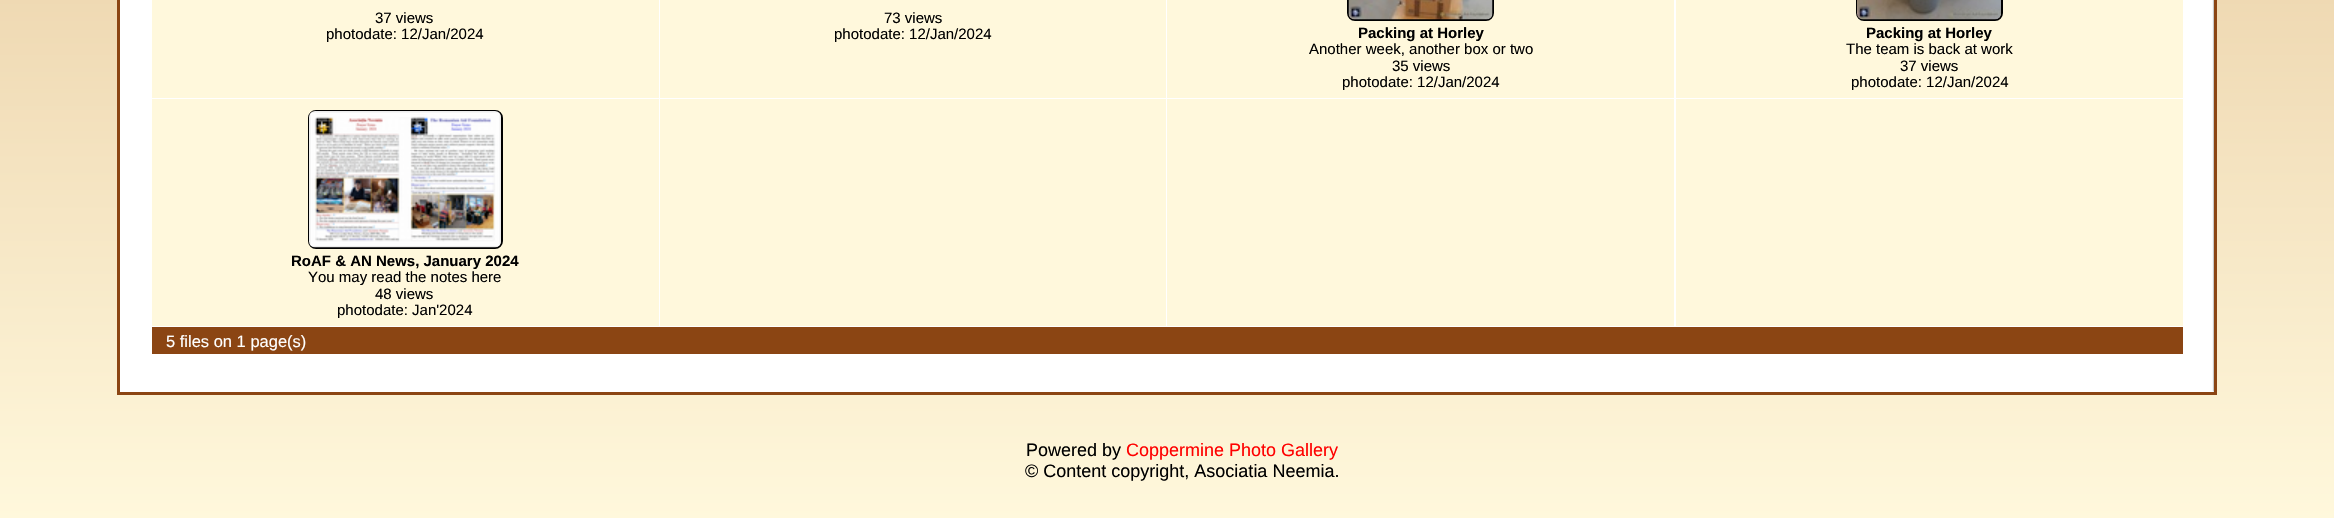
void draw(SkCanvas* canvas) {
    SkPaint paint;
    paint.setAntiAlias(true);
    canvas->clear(0xFFFFFFFF);
    {
        const SkColor colors[] = {0xFFFFF8DC, 0xFFDEB887};
        const float stops[] = {0, 1};
        const SkPoint ends[] = {{1167, 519}, {1167, -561}};
        paint.setShader(SkGradientShader::MakeLinear(ends, colors, stops, 2, SkTileMode::kClamp));
        paint.setAlpha(255);
    }
    canvas->drawRect(SkRect::MakeXYWH(0, 0, 2334, 518), paint);
    paint.setShader(nullptr);
    paint.setColor(0xFFFFFFFF);
    canvas->drawRect(SkRect::MakeXYWH(118.5f, -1.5f, 2097, 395), paint);
    paint.setStyle(SkPaint::kStroke_Style);
    paint.setStrokeWidth(3);
    paint.setColor(0xFF8B4513);
    canvas->drawRect(SkRect::MakeXYWH(118.5f, -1.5f, 2097, 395), paint);
    canvas->drawImageRect(SkImages::DeferredFromEncodedData(SkData::MakeFromFileName("img1.png")), SkRect::MakeXYWH(2212, 0, 2, 392), SkSamplingOptions());
    paint.setStyle(SkPaint::kFill_Style);
    paint.setColor(0xFFFFF8DC);
    canvas->drawRect(SkRect::MakeXYWH(152, 0, 507, 98), paint);
    SkFont font1(fontMgr->matchFamilyStyle("Liberation Sans", SkFontStyle::Normal()), 15);
    font1.setSubpixel(true);
    paint.setColor(0xFF000000);
    canvas->drawString("37 views", 375, 23, font1, paint);
    canvas->drawString("photodate: 12/Jan/2024", 326, 39, font1, paint);
    paint.setColor(0xFFFFF8DC);
    canvas->drawRect(SkRect::MakeXYWH(660, 0, 506, 98), paint);
    paint.setColor(0xFF000000);
    canvas->drawString("73 views", 884, 23, font1, paint);
    canvas->drawString("photodate: 12/Jan/2024", 834, 39, font1, paint);
    paint.setColor(0xFFFFF8DC);
    canvas->drawRect(SkRect::MakeXYWH(1167, 0, 507, 98), paint);
    paint.setStyle(SkPaint::kStroke_Style);
    paint.setStrokeWidth(2);
    paint.setColor(0xFF000000);
    canvas->drawRoundRect(SkRect::MakeXYWH(1348, -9, 145, 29), 7, 7, paint);
    canvas->drawImageRect(SkImages::DeferredFromEncodedData(SkData::MakeFromFileName("img2.png")), SkRect::MakeXYWH(1348, 0, 145, 20), SkSamplingOptions());
    SkFont font2(fontMgr->matchFamilyStyle("Liberation Sans", SkFontStyle::Bold()), 15);
    font2.setSubpixel(true);
    paint.setStyle(SkPaint::kFill_Style);
    canvas->drawString("Packing at Horley", 1358, 38, font2, paint);
    canvas->drawString("Another week, another box or two", 1309, 54, font1, paint);
    canvas->drawString("35 views", 1392, 71, font1, paint);
    canvas->drawString("photodate: 12/Jan/2024", 1342, 87, font1, paint);
    paint.setColor(0xFFFFF8DC);
    canvas->drawRect(SkRect::MakeXYWH(1676, 0, 507, 98), paint);
    paint.setStyle(SkPaint::kStroke_Style);
    paint.setColor(0xFF000000);
    canvas->drawRoundRect(SkRect::MakeXYWH(1857, -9, 145, 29), 7, 7, paint);
    canvas->drawImageRect(SkImages::DeferredFromEncodedData(SkData::MakeFromFileName("img3.png")), SkRect::MakeXYWH(1857, 0, 144, 20), SkSamplingOptions());
    paint.setStyle(SkPaint::kFill_Style);
    canvas->drawString("Packing at Horley", 1866, 38, font2, paint);
    canvas->drawString("The team is back at work", 1846, 54, font1, paint);
    canvas->drawString("37 views", 1900, 71, font1, paint);
    canvas->drawString("photodate: 12/Jan/2024", 1851, 87, font1, paint);
    paint.setColor(0xFFFFF8DC);
    canvas->drawRect(SkRect::MakeXYWH(152, 99, 507, 227), paint);
    paint.setStyle(SkPaint::kStroke_Style);
    paint.setColor(0xFF000000);
    canvas->drawRoundRect(SkRect::MakeXYWH(309, 111, 193, 137), 7, 7, paint);
    canvas->drawImageRect(SkImages::DeferredFromEncodedData(SkData::MakeFromFileName("img4.png")), SkRect::MakeXYWH(309, 111, 192, 137), SkSamplingOptions());
    paint.setStyle(SkPaint::kFill_Style);
    canvas->drawString("RoAF & AN News, January 2024", 291, 266, font2, paint);
    canvas->drawString("You may read the notes here", 308, 282, font1, paint);
    canvas->drawString("48 views", 375, 299, font1, paint);
    canvas->drawString("photodate: Jan'2024", 337, 315, font1, paint);
    paint.setColor(0xFFFFF8DC);
    canvas->drawRect(SkRect::MakeXYWH(660, 99, 506, 227), paint);
    canvas->drawRect(SkRect::MakeXYWH(1167, 99, 507, 227), paint);
    canvas->drawRect(SkRect::MakeXYWH(1676, 99, 507, 227), paint);
    paint.setColor(0xFF8B4513);
    canvas->drawRect(SkRect::MakeXYWH(152, 327, 2031, 27), paint);
    SkFont font3(fontMgr->matchFamilyStyle("Liberation Sans", SkFontStyle::Normal()), 16.5f);
    font3.setSubpixel(true);
    paint.setColor(0xFFFFFFFF);
    canvas->drawString("5 files on 1 page(s)", 166, 347, font3, paint);
    SkFont font4(fontMgr->matchFamilyStyle("Liberation Sans", SkFontStyle::Normal()), 18);
    font4.setSubpixel(true);
    paint.setColor(0xFF000000);
    canvas->drawString("Powered by", 1026, 456, font4, paint);
    paint.setColor(0xFFFF0000);
    canvas->drawString("Coppermine Photo Gallery", 1126, 456, font4, paint);
    paint.setColor(0xFF000000);
    canvas->drawString("© Content copyright, Asociatia Neemia.", 1025, 477, font4, paint);
}
